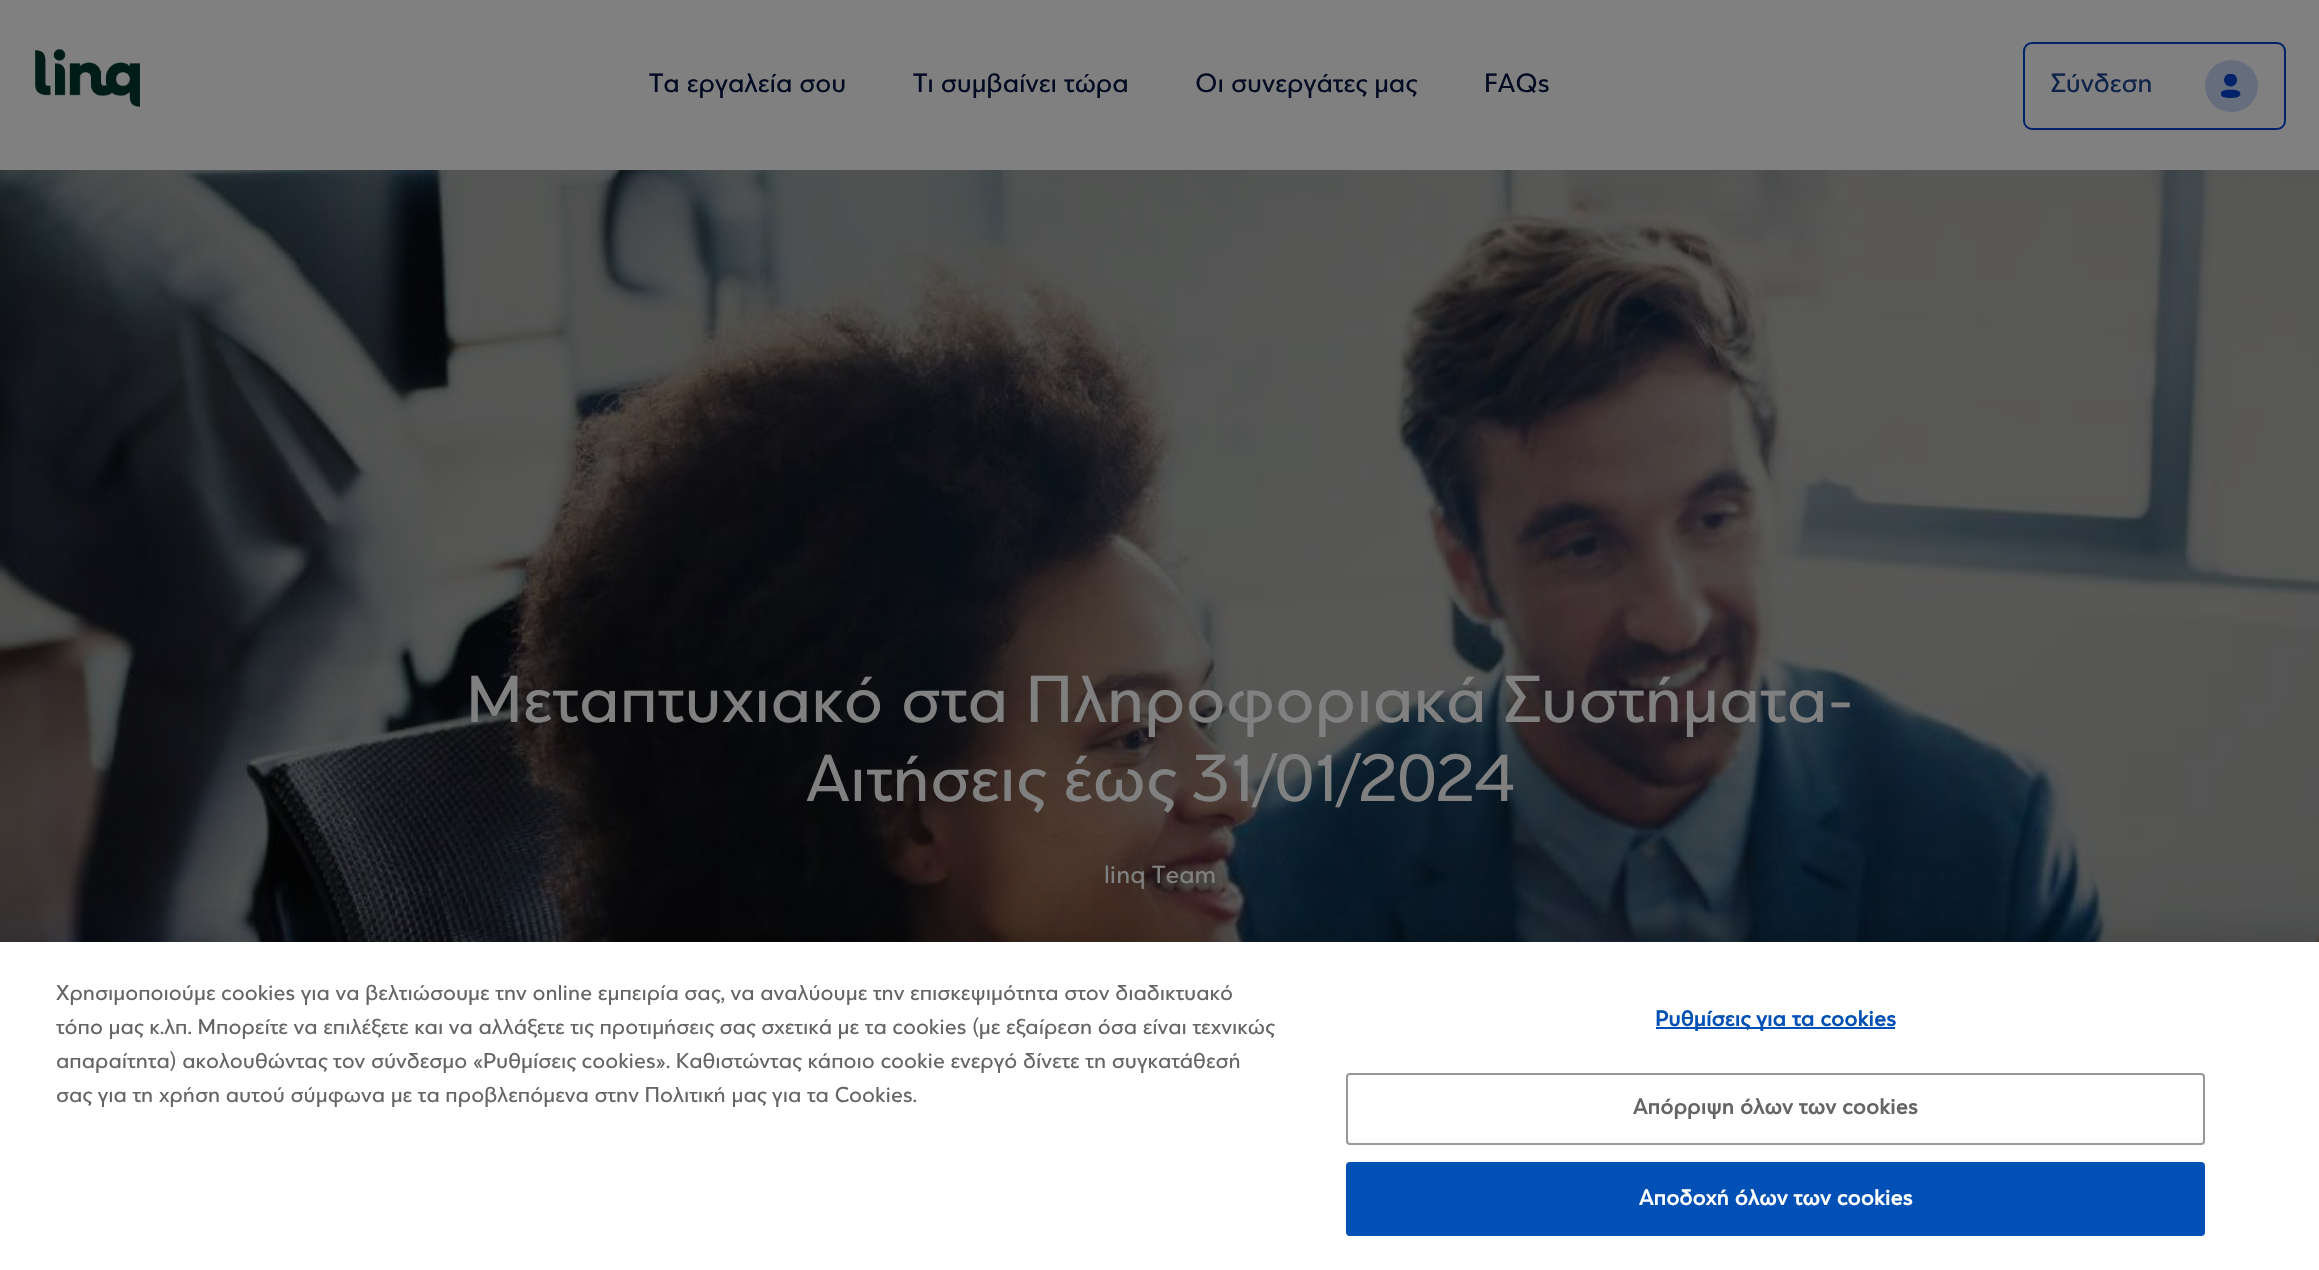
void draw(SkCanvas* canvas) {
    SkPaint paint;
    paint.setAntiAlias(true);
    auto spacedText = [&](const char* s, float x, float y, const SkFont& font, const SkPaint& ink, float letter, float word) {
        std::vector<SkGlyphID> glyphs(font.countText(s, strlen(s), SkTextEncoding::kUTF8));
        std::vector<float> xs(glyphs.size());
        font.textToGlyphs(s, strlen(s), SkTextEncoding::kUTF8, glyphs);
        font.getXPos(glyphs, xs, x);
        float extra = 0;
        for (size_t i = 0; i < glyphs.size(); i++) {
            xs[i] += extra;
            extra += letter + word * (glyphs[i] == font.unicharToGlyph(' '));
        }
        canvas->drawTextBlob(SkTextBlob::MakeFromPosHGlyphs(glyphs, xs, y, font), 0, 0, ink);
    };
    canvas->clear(0xFFFFFFFF);
    paint.setColor(0xFF808080);
    canvas->drawRect(SkRect::MakeXYWH(0, 0, 2319, 170), paint);
    canvas->drawImageRect(SkImages::DeferredFromEncodedData(SkData::MakeFromFileName("img1.png")), SkRect::MakeXYWH(35, 48, 105, 59), SkSamplingOptions());
    SkFont font1(fontMgr->matchFamilyStyle("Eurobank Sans", SkFontStyle::Normal()), 28);
    font1.setSubpixel(true);
    paint.setColor(0xFF010A21);
    canvas->drawString("Τα εργαλεία σου", 649, 92, font1, paint);
    canvas->drawString("Τι συμβαίνει τώρα", 913, 92, font1, paint);
    canvas->drawString("Οι συνεργάτες μας", 1195, 92, font1, paint);
    canvas->drawString("FAQs", 1484, 92, font1, paint);
    paint.setStyle(SkPaint::kStroke_Style);
    paint.setStrokeWidth(2);
    paint.setColor(0xFF00226B);
    canvas->drawRoundRect(SkRect::MakeXYWH(2024, 43, 261, 86), 8, 8, paint);
    paint.setStyle(SkPaint::kFill_Style);
    paint.setColor(0xFF0F2249);
    canvas->drawString("Σύνδεση", 2051, 92, font1, paint);
    paint.setColor(0xFF666D7C);
    canvas->drawRoundRect(SkRect::MakeXYWH(2205, 60, 53, 52), 26, 26, paint);
    canvas->drawImageRect(SkImages::DeferredFromEncodedData(SkData::MakeFromFileName("img2.png")), SkRect::MakeXYWH(2221, 74, 20, 24), SkSamplingOptions());
    canvas->drawImageRect(SkImages::DeferredFromEncodedData(SkData::MakeFromFileName("img3.png")), SkRect::MakeXYWH(0, 170, 2319, 772), SkSamplingOptions());
    SkFont font2(fontMgr->matchFamilyStyle("Eurobank Sans", SkFontStyle::Normal()), 70);
    font2.setSubpixel(true);
    paint.setColor(0xFF808080);
    canvas->drawString("Μεταπτυχιακό στα Πληροφοριακά Συστήματα-", 466, 722, font2, paint);
    canvas->drawString("Αιτήσεις έως 31/01/2024", 806, 801, font2, paint);
    SkFont font3(fontMgr->matchFamilyStyle("Eurobank Sans", SkFontStyle::Normal()), 26.25f);
    font3.setSubpixel(true);
    canvas->drawString("linq Team", 1104, 883, font3, paint);
    paint.setColor(0x33000000);
    paint.setMaskFilter(SkMaskFilter::MakeBlur(kNormal_SkBlurStyle, 16));
    canvas->drawRect(SkRect::MakeXYWH(0, 942, 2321, 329), paint);
    paint.setMaskFilter(nullptr);
    paint.setColor(0xFFFFFFFF);
    canvas->drawRect(SkRect::MakeXYWH(0, 942, 2319, 328), paint);
    SkFont font4(fontMgr->matchFamilyStyle("Eurobank Sans", SkFontStyle::Normal()), 22.75f);
    font4.setSubpixel(true);
    paint.setColor(0xFF656566);
    canvas->drawString("Χρησιμοποιούμε cookies για να βελτιώσουμε την online εμπειρία σας, να αναλύουμε την επισκεψιμότητα στον διαδικτυακό", 56, 1000, font4, paint);
    canvas->drawString("τόπο μας κ.λπ. Μπορείτε να επιλέξετε και να αλλάξετε τις προτιμήσεις σας σχετικά με τα cookies (με εξαίρεση όσα είναι τεχνικώς", 56, 1034, font4, paint);
    canvas->drawString("απαραίτητα) ακολουθώντας τον σύνδεσμο «Ρυθμίσεις cookies». Καθιστώντας κάποιο cookie ενεργό δίνετε τη συγκατάθεσή", 56, 1068, font4, paint);
    canvas->drawString("σας για τη χρήση αυτού σύμφωνα με τα προβλεπόμενα στην Πολιτική μας για τα Cookies.", 56, 1102, font4, paint);
    paint.setColor(0xFF0050B5);
    canvas->drawRect(SkRect::MakeXYWH(1656, 1027, 239, 2), paint);
    SkFont font5(fontMgr->matchFamilyStyle("Eurobank Sans", SkFontStyle::Bold()), 22.75f);
    font5.setSubpixel(true);
    spacedText("Ρυθμίσεις για τα cookies", 1655, 1026, font5, paint, 0.25f, 0);
    paint.setStyle(SkPaint::kStroke_Style);
    paint.setColor(0xFF96989B);
    canvas->drawRoundRect(SkRect::MakeXYWH(1347, 1074, 857, 70), 3, 3, paint);
    paint.setStyle(SkPaint::kFill_Style);
    paint.setColor(0xFF656566);
    spacedText("Απόρριψη όλων των cookies", 1633, 1114, font5, paint, 0.25f, 0);
    paint.setColor(0xFF0050B5);
    canvas->drawRoundRect(SkRect::MakeXYWH(1347, 1163, 857, 72), 3, 3, paint);
    paint.setStyle(SkPaint::kStroke_Style);
    canvas->drawRoundRect(SkRect::MakeXYWH(1347, 1163, 857, 72), 3, 3, paint);
    paint.setStyle(SkPaint::kFill_Style);
    paint.setColor(0xFFFFFFFF);
    spacedText("Αποδοχή όλων των cookies", 1639, 1205, font5, paint, 0.25f, 0);
}
